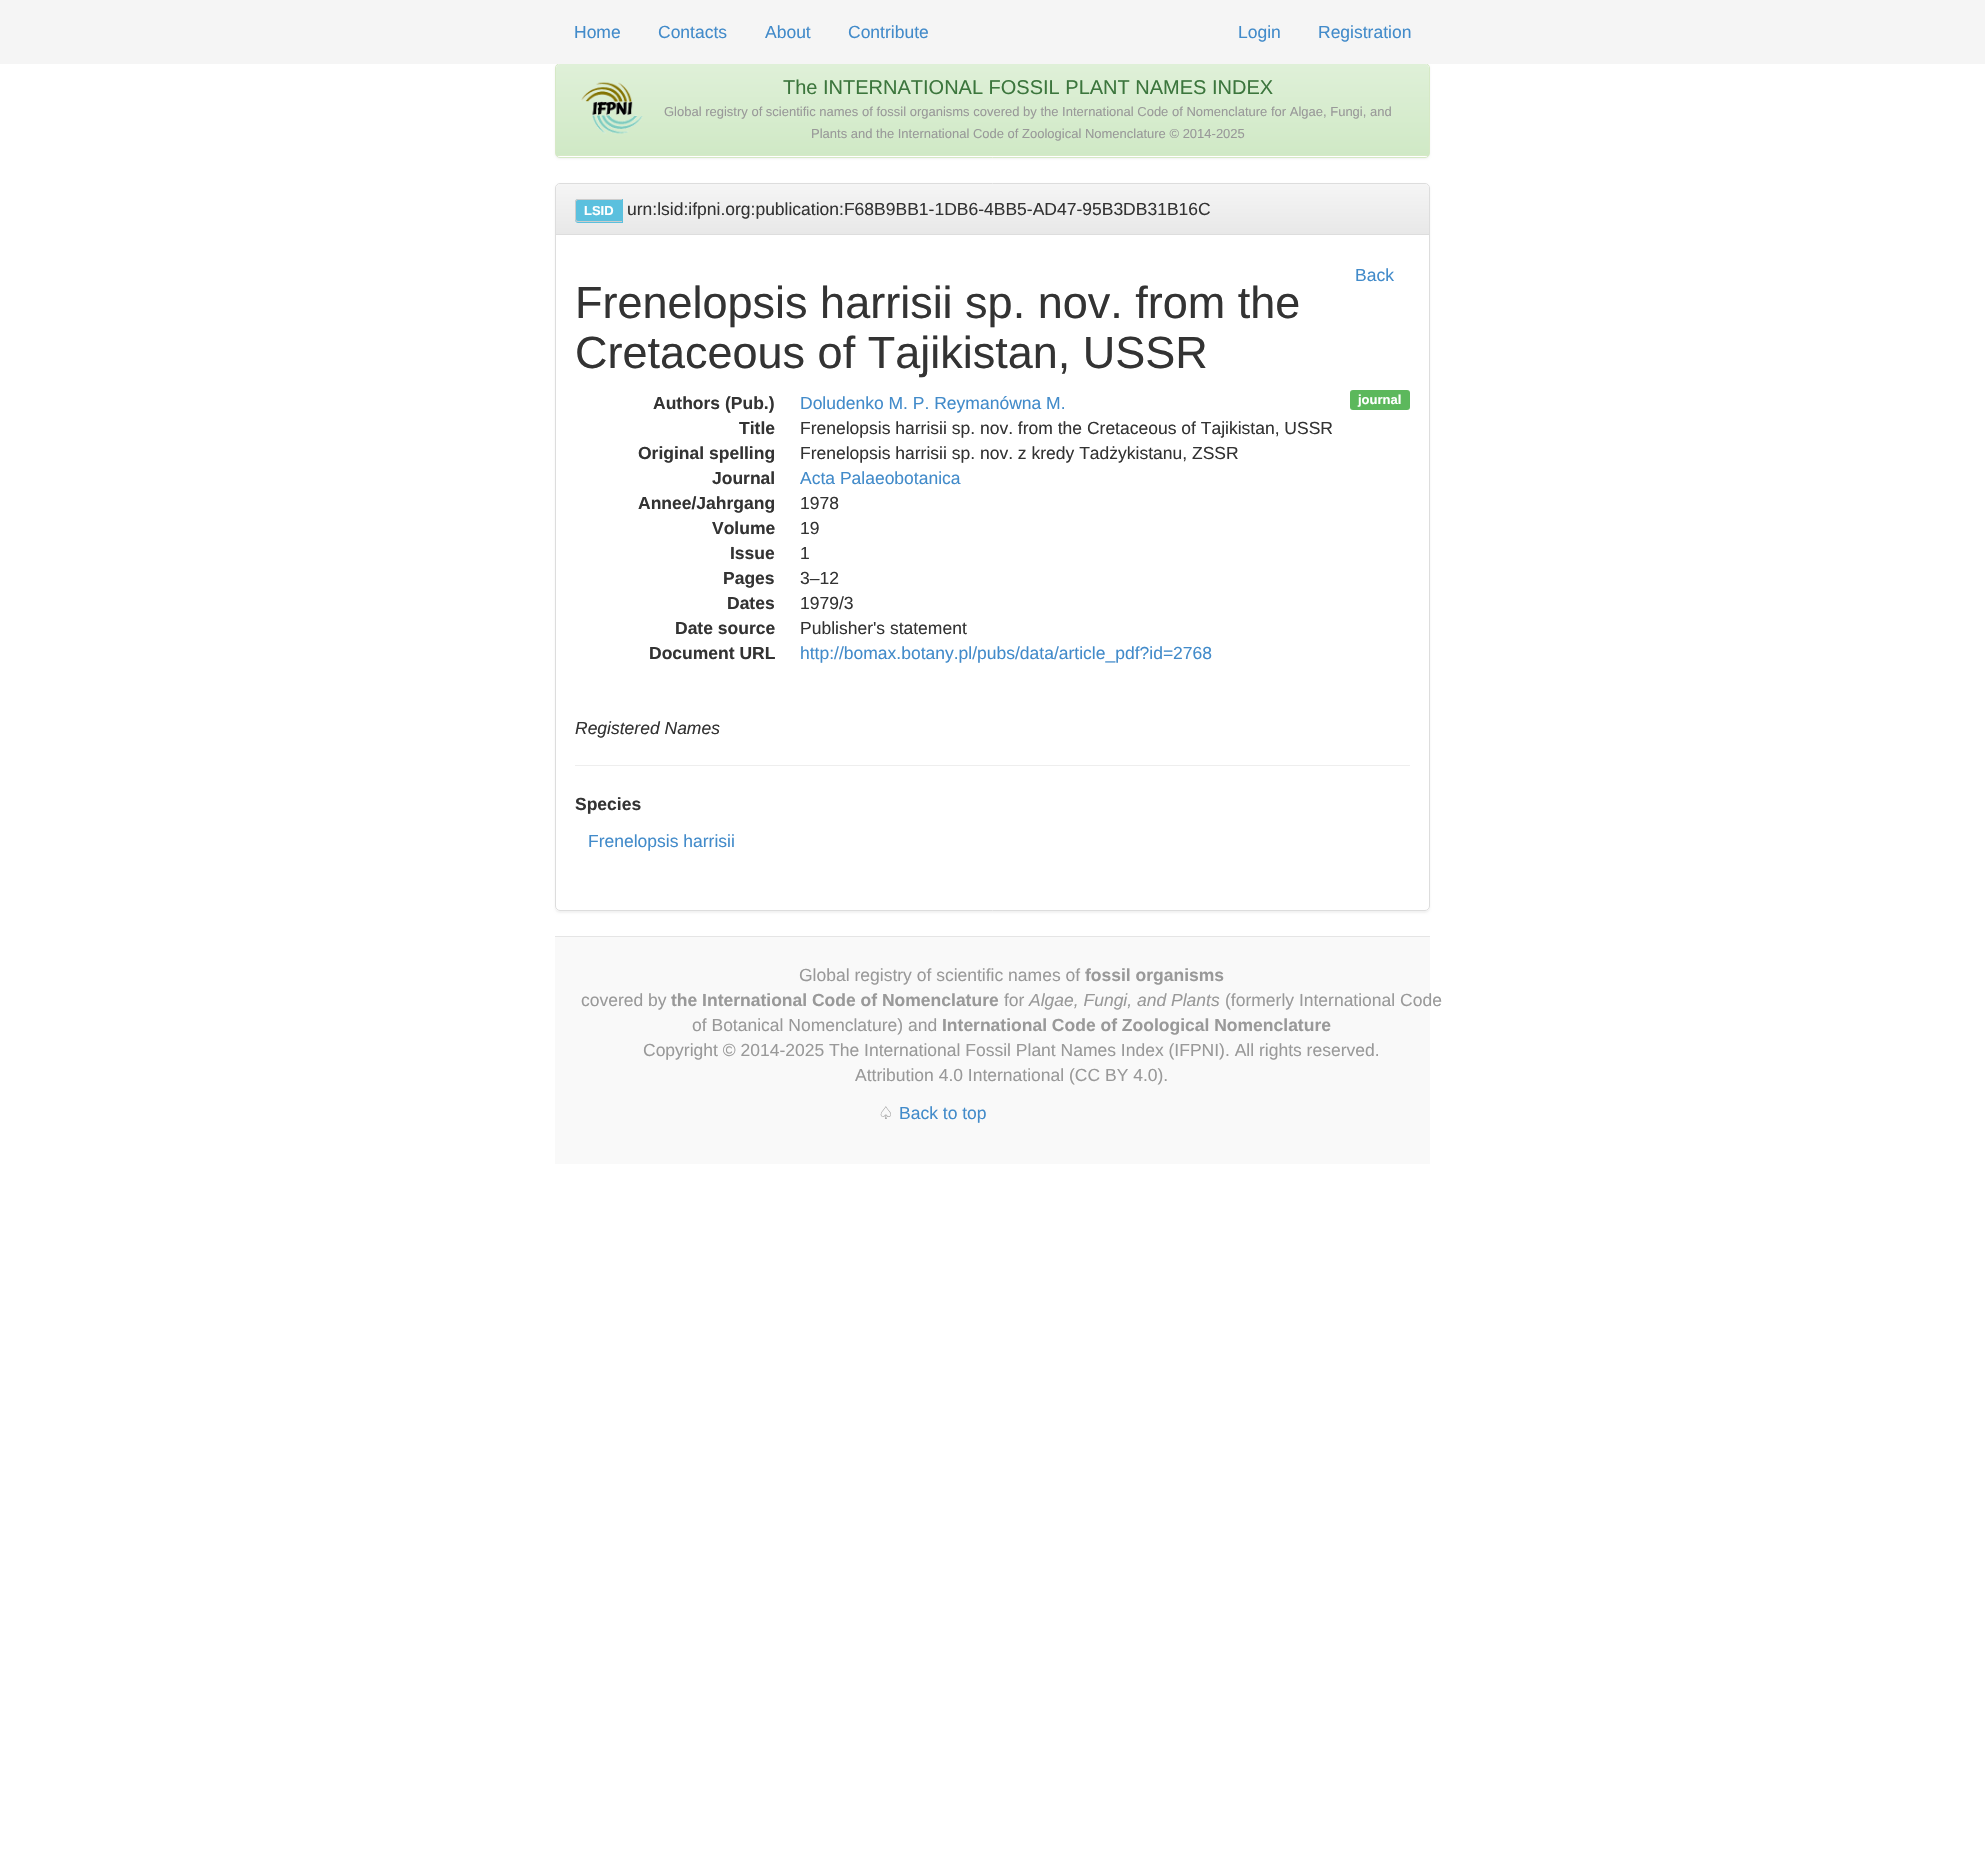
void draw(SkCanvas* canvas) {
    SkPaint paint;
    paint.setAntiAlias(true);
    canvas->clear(0xFFFFFFFF);
    paint.setColor(0x0D000000);
    paint.setMaskFilter(SkMaskFilter::MakeBlur(kNormal_SkBlurStyle, 1));
    canvas->drawRoundRect(SkRect::MakeXYWH(555, 64, 875, 95), 5, 5, paint);
    paint.setMaskFilter(nullptr);
    paint.setColor(0xFFFFFFFF);
    canvas->drawRoundRect(SkRect::MakeXYWH(555.5f, 63.5f, 874, 94), 4.5f, 4.5f, paint);
    paint.setStyle(SkPaint::kStroke_Style);
    paint.setStrokeWidth(1);
    paint.setColor(0xFFD6E9C6);
    canvas->drawRoundRect(SkRect::MakeXYWH(555.5f, 63.5f, 874, 94), 4.5f, 4.5f, paint);
    paint.setStyle(SkPaint::kFill_Style);
    paint.setColor(0xFFF5F5F5);
    canvas->drawRect(SkRect::MakeXYWH(0, 0, 1985, 64), paint);
    SkFont font1(fontMgr->matchFamilyStyle("Liberation Sans", SkFontStyle::Normal()), 17.5f);
    font1.setSubpixel(true);
    paint.setColor(0xFF428BCA);
    canvas->drawString("Home", 574, 38, font1, paint);
    canvas->drawString("Contacts", 658, 38, font1, paint);
    canvas->drawString("About", 765, 38, font1, paint);
    canvas->drawString("Contribute", 848, 38, font1, paint);
    canvas->drawString("Login", 1238, 38, font1, paint);
    canvas->drawString("Registration", 1318, 38, font1, paint);
    {
        const SkColor colors[] = {0xFFDFF0D8, 0xFFD0E9C6};
        const float stops[] = {0, 1};
        const SkPoint ends[] = {{993, 64}, {993, 155}};
        paint.setShader(SkGradientShader::MakeLinear(ends, colors, stops, 2, SkTileMode::kClamp));
        paint.setAlpha(255);
    }
    canvas->drawPath(SkPathBuilder().moveTo(560, 64).lineTo(1425, 64).cubicTo(1427, 64, 1429, 66, 1429, 68).lineTo(1429, 155).lineTo(556, 155).lineTo(556, 68).cubicTo(556, 66, 558, 64, 560, 64).close().detach(), paint);
    paint.setShader(nullptr);
    paint.setColor(0xFFD6E9C6);
    canvas->drawRect(SkRect::MakeXYWH(556, 155, 873, 1), paint);
    canvas->drawImageRect(SkImages::DeferredFromEncodedData(SkData::MakeFromFileName("img1.png")), SkRect::MakeXYWH(580, 82, 63, 52), SkSamplingOptions());
    SkFont font2(fontMgr->matchFamilyStyle("Liberation Sans", SkFontStyle::Normal()), 20);
    font2.setSubpixel(true);
    paint.setColor(0xFF3C763D);
    canvas->drawString("The INTERNATIONAL FOSSIL PLANT NAMES INDEX", 783, 94, font2, paint);
    SkFont font3(fontMgr->matchFamilyStyle("Liberation Sans", SkFontStyle::Normal()), 13);
    font3.setSubpixel(true);
    paint.setColor(0xFF999999);
    canvas->drawString("Global registry of scientific names of fossil organisms covered by the International Code of Nomenclature for Algae, Fungi, and", 664, 116, font3, paint);
    canvas->drawString("Plants and the International Code of Zoological Nomenclature © 2014-2025", 811, 138, font3, paint);
    canvas->save();
    canvas->clipPath(SkPathBuilder(SkPathFillType::kEvenOdd).moveTo(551, 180).lineTo(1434, 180).lineTo(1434, 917).lineTo(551, 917).close().moveTo(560, 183).lineTo(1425, 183).cubicTo(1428, 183, 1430, 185, 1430, 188).lineTo(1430, 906).cubicTo(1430, 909, 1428, 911, 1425, 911).lineTo(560, 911).cubicTo(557, 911, 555, 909, 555, 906).lineTo(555, 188).cubicTo(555, 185, 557, 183, 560, 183).close().detach(), true);
    paint.setColor(0x0D000000);
    paint.setMaskFilter(SkMaskFilter::MakeBlur(kNormal_SkBlurStyle, 1));
    canvas->drawRoundRect(SkRect::MakeXYWH(555, 184, 875, 729), 5, 5, paint);
    paint.setMaskFilter(nullptr);
    canvas->restore();
    paint.setStyle(SkPaint::kStroke_Style);
    paint.setColor(0xFFDDDDDD);
    canvas->drawRoundRect(SkRect::MakeXYWH(555.5f, 183.5f, 874, 727), 4.5f, 4.5f, paint);
    paint.setStyle(SkPaint::kFill_Style);
    {
        const SkColor colors[] = {0xFFF5F5F5, 0xFFE8E8E8};
        const float stops[] = {0, 1};
        const SkPoint ends[] = {{993, 184}, {993, 234}};
        paint.setShader(SkGradientShader::MakeLinear(ends, colors, stops, 2, SkTileMode::kClamp));
        paint.setAlpha(255);
    }
    canvas->drawPath(SkPathBuilder().moveTo(560, 184).lineTo(1425, 184).cubicTo(1427, 184, 1429, 186, 1429, 188).lineTo(1429, 234).lineTo(556, 234).lineTo(556, 188).cubicTo(556, 186, 558, 184, 560, 184).close().detach(), paint);
    paint.setShader(nullptr);
    paint.setColor(0xFFDDDDDD);
    canvas->drawRect(SkRect::MakeXYWH(556, 234, 873, 1), paint);
    paint.setColor(0xFF5BC0DE);
    canvas->drawPath(SkPathBuilder().moveTo(578, 199).lineTo(623, 199).lineTo(623, 223).lineTo(578, 223).cubicTo(576.5f, 223, 575, 221.5f, 575, 220).lineTo(575, 202).cubicTo(575, 200.5f, 576.5f, 199, 578, 199).close().detach(), paint);
    paint.setColor(0xFFCCCCCC);
    canvas->drawPath(SkPathBuilder(SkPathFillType::kEvenOdd).moveTo(578, 199).lineTo(622, 199).lineTo(622, 222).lineTo(578, 222).cubicTo(576, 222, 575, 221, 575, 219).lineTo(575, 202).cubicTo(575, 200, 576, 199, 578, 199).close().moveTo(578, 200).lineTo(622, 200).lineTo(622, 221).lineTo(578, 221).cubicTo(577, 221, 576, 220, 576, 219).lineTo(576, 202).cubicTo(576, 201, 577, 200, 578, 200).close().detach(), paint);
    SkFont font4(fontMgr->matchFamilyStyle("Liberation Sans", SkFontStyle::Bold()), 13);
    font4.setSubpixel(true);
    paint.setColor(0xFFFFFFFF);
    canvas->drawString("LSID", 584, 215, font4, paint);
    paint.setColor(0xFF333333);
    canvas->drawString("urn:lsid:ifpni.org:publication:F68B9BB1-1DB6-4BB5-AD47-95B3DB31B16C", 627, 215, font1, paint);
    paint.setColor(0xFF428BCA);
    canvas->drawString("Back", 1355, 281, font1, paint);
    SkFont font5(fontMgr->matchFamilyStyle("Liberation Sans", SkFontStyle::Normal()), 45);
    font5.setSubpixel(true);
    paint.setColor(0xFF333333);
    canvas->drawString("Frenelopsis harrisii sp. nov. from the", 575, 318, font5, paint);
    canvas->drawString("Cretaceous of Tajikistan, USSR", 575, 368, font5, paint);
    SkFont font6(fontMgr->matchFamilyStyle("Liberation Sans", SkFontStyle::Bold()), 17.5f);
    font6.setSubpixel(true);
    canvas->drawString("Authors (Pub.)", 653, 409, font6, paint);
    paint.setColor(0xFF428BCA);
    canvas->drawString("Doludenko M. P. Reymanówna M.", 800, 409, font1, paint);
    paint.setColor(0xFF333333);
    canvas->drawString("Title", 739, 434, font6, paint);
    canvas->drawString("Frenelopsis harrisii sp. nov. from the Cretaceous of Tajikistan, USSR", 800, 434, font1, paint);
    canvas->drawString("Original spelling", 638, 459, font6, paint);
    canvas->drawString("Frenelopsis harrisii sp. nov. z kredy Tadżykistanu, ZSSR", 800, 459, font1, paint);
    canvas->drawString("Journal", 712, 484, font6, paint);
    paint.setColor(0xFF428BCA);
    canvas->drawString("Acta Palaeobotanica", 800, 484, font1, paint);
    paint.setColor(0xFF333333);
    canvas->drawString("Annee/Jahrgang", 638, 509, font6, paint);
    canvas->drawString("1978", 800, 509, font1, paint);
    canvas->drawString("Volume", 712, 534, font6, paint);
    canvas->drawString("19", 800, 534, font1, paint);
    canvas->drawString("Issue", 730, 559, font6, paint);
    canvas->drawString("1", 800, 559, font1, paint);
    canvas->drawString("Pages", 723, 584, font6, paint);
    canvas->drawString("3–12", 800, 584, font1, paint);
    canvas->drawString("Dates", 727, 609, font6, paint);
    canvas->drawString("1979/3", 800, 609, font1, paint);
    canvas->drawString("Date source", 675, 634, font6, paint);
    canvas->drawString("Publisher's statement", 800, 634, font1, paint);
    canvas->drawString("Document URL", 649, 659, font6, paint);
    paint.setColor(0xFF428BCA);
    canvas->drawString("http://bomax.botany.pl/pubs/data/article_pdf?id=2768", 800, 659, font1, paint);
    paint.setColor(0xFF5CB85C);
    canvas->drawRoundRect(SkRect::MakeXYWH(1350, 390, 60, 20), 3, 3, paint);
    paint.setColor(0xFFFFFFFF);
    canvas->drawString("journal", 1358, 404, font4, paint);
    SkFont font7(fontMgr->matchFamilyStyle("Liberation Sans", SkFontStyle::Italic()), 17.5f);
    font7.setSubpixel(true);
    paint.setColor(0xFF333333);
    canvas->drawString("Registered Names", 575, 734, font7, paint);
    paint.setColor(0xFFEEEEEE);
    canvas->drawRect(SkRect::MakeXYWH(575, 765, 835, 1), paint);
    paint.setColor(0xFF333333);
    canvas->drawString("Species", 575, 810, font6, paint);
    paint.setColor(0xFF428BCA);
    canvas->drawString("Frenelopsis harrisii", 588, 847, font1, paint);
    paint.setColor(0xFFF9F9F9);
    canvas->drawRect(SkRect::MakeXYWH(555, 937, 875, 227), paint);
    paint.setColor(0xFFE5E5E5);
    canvas->drawRect(SkRect::MakeXYWH(555, 936, 875, 1), paint);
    paint.setColor(0xFF999999);
    canvas->drawString("Global registry of scientific names of", 799, 981, font1, paint);
    canvas->drawString("fossil organisms", 1085, 981, font6, paint);
    canvas->drawString("covered by", 581, 1006, font1, paint);
    canvas->drawString("the International Code of Nomenclature", 671, 1006, font6, paint);
    canvas->drawString("for", 1004, 1006, font1, paint);
    canvas->drawString("Algae, Fungi, and Plants", 1029, 1006, font7, paint);
    canvas->drawString("(formerly International Code", 1225, 1006, font1, paint);
    canvas->drawString("of Botanical Nomenclature) and", 692, 1031, font1, paint);
    canvas->drawString("International Code of Zoological Nomenclature", 942, 1031, font6, paint);
    canvas->drawString("Copyright © 2014-2025 The International Fossil Plant Names Index (IFPNI). All rights reserved.", 643, 1056, font1, paint);
    canvas->drawString("Attribution 4.0 International (CC BY 4.0).", 855, 1081, font1, paint);
    SkFont font8(fontMgr->matchFamilyStyle("DejaVu Sans", SkFontStyle::Normal()), 17.5f);
    font8.setSubpixel(true);
    canvas->drawString("♤", 878, 1119, font8, paint);
    paint.setColor(0xFF428BCA);
    canvas->drawString("Back to top", 899, 1119, font1, paint);
}
